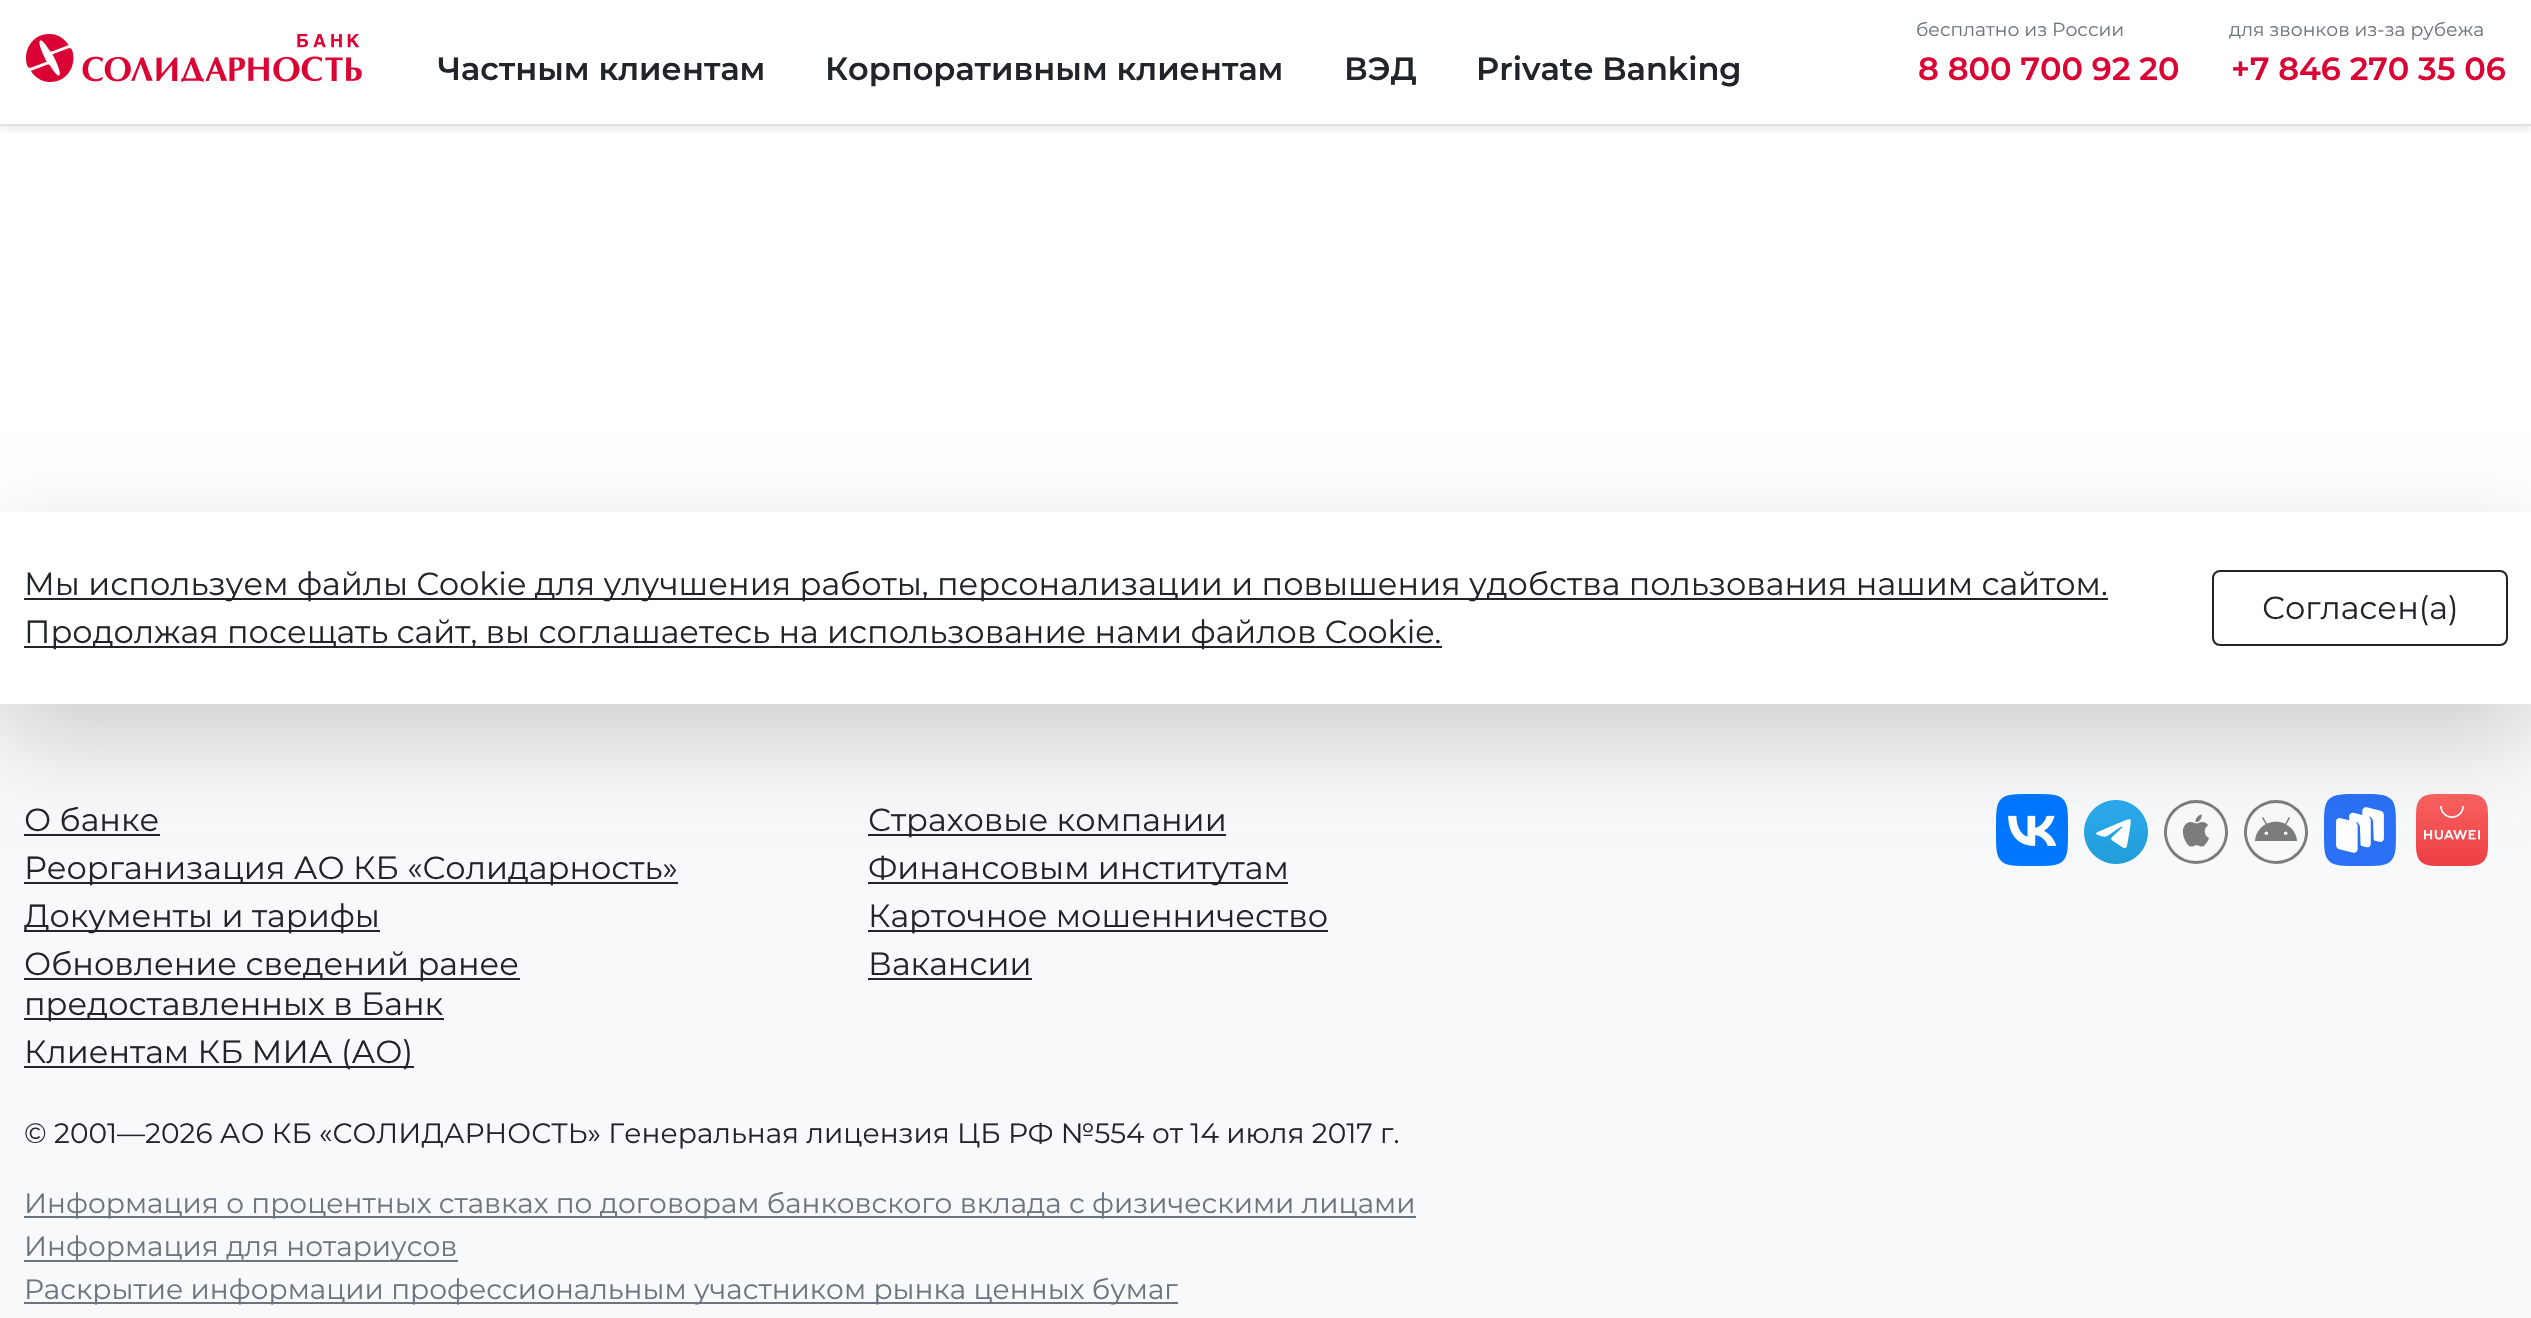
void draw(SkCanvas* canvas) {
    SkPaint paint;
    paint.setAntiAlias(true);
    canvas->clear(0xFFFFFFFF);
    canvas->save();
    canvas->clipRect(SkRect::MakeXYWH(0, 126, 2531, 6));
    paint.setColor(0x12000000);
    paint.setMaskFilter(SkMaskFilter::MakeBlur(kNormal_SkBlurStyle, 4));
    canvas->drawRect(SkRect::MakeXYWH(0, 4, 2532, 126), paint);
    paint.setMaskFilter(nullptr);
    canvas->restore();
    paint.setColor(0xFFDEE2E6);
    canvas->drawRect(SkRect::MakeXYWH(0, 124, 2531, 2), paint);
    canvas->drawImageRect(SkImages::DeferredFromEncodedData(SkData::MakeFromFileName("img1.png")), SkRect::MakeXYWH(26, 34, 336, 48), SkSamplingOptions());
    SkFont font1(fontMgr->matchFamilyStyle("Montserrat", SkFontStyle(600, SkFontStyle::kNormal_Width, SkFontStyle::kUpright_Slant)), 32);
    font1.setSubpixel(true);
    paint.setColor(0xFF212529);
    canvas->drawString("Частным клиентам", 438, 80, font1, paint);
    canvas->drawString("Корпоративным клиентам", 825, 80, font1, paint);
    canvas->drawString("ВЭД", 1344, 80, font1, paint);
    canvas->drawString("Private Banking", 1476, 80, font1, paint);
    SkFont font2(fontMgr->matchFamilyStyle("Montserrat", SkFontStyle::Normal()), 18.75f);
    font2.setSubpixel(true);
    paint.setColor(0xFF6C757D);
    canvas->drawString("бесплатно из России", 1916, 36, font2, paint);
    paint.setColor(0xFFDB0334);
    canvas->drawString("8 800 700 92 20", 1918, 80, font1, paint);
    paint.setColor(0xFF6C757D);
    canvas->drawString("для звонков из-за рубежа", 2229, 36, font2, paint);
    paint.setColor(0xFFDB0334);
    canvas->drawString("+7 846 270 35 06", 2231, 80, font1, paint);
    paint.setColor(0xFFF8F9FA);
    canvas->drawRect(SkRect::MakeXYWH(0, 704, 2531, 614), paint);
    paint.setColor(0xFF212529);
    canvas->drawRect(SkRect::MakeXYWH(24, 834, 136, 2), paint);
    canvas->drawRect(SkRect::MakeXYWH(868, 834, 358, 2), paint);
    canvas->drawImageRect(SkImages::DeferredFromEncodedData(SkData::MakeFromFileName("img2.png")), SkRect::MakeXYWH(1996, 794, 72, 72), SkSamplingOptions());
    canvas->drawImageRect(SkImages::DeferredFromEncodedData(SkData::MakeFromFileName("img3.png")), SkRect::MakeXYWH(2084, 800, 64, 64), SkSamplingOptions());
    canvas->drawImageRect(SkImages::DeferredFromEncodedData(SkData::MakeFromFileName("img4.png")), SkRect::MakeXYWH(2164, 800, 64, 64), SkSamplingOptions());
    canvas->drawImageRect(SkImages::DeferredFromEncodedData(SkData::MakeFromFileName("img5.png")), SkRect::MakeXYWH(2244, 800, 64, 64), SkSamplingOptions());
    canvas->drawImageRect(SkImages::DeferredFromEncodedData(SkData::MakeFromFileName("img6.png")), SkRect::MakeXYWH(2324, 794, 72, 72), SkSamplingOptions());
    canvas->drawImageRect(SkImages::DeferredFromEncodedData(SkData::MakeFromFileName("img7.png")), SkRect::MakeXYWH(2416, 794, 72, 72), SkSamplingOptions());
    canvas->save();
    canvas->clipPath(SkPathBuilder(SkPathFillType::kEvenOdd).moveTo(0, 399).lineTo(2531, 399).lineTo(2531, 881).lineTo(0, 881).close().moveTo(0, 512).lineTo(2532, 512).lineTo(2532, 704).lineTo(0, 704).close().detach(), true);
    paint.setColor(0x2E000000);
    paint.setMaskFilter(SkMaskFilter::MakeBlur(kNormal_SkBlurStyle, 48));
    canvas->drawRect(SkRect::MakeXYWH(0, 544, 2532, 192), paint);
    paint.setMaskFilter(nullptr);
    canvas->restore();
    paint.setColor(0xFF212529);
    canvas->drawRect(SkRect::MakeXYWH(24, 598, 2084, 2), paint);
    SkFont font3(fontMgr->matchFamilyStyle("Montserrat", SkFontStyle::Normal()), 32);
    font3.setSubpixel(true);
    canvas->drawString("Мы используем файлы Cookie для улучшения работы, персонализации и повышения удобства пользования нашим сайтом.", 24, 595, font3, paint);
    canvas->drawRect(SkRect::MakeXYWH(24, 646, 1418, 2), paint);
    canvas->drawString("Продолжая посещать сайт, вы соглашаетесь на использование нами файлов Cookie.", 24, 643, font3, paint);
    paint.setStyle(SkPaint::kStroke_Style);
    paint.setStrokeWidth(2);
    canvas->drawRoundRect(SkRect::MakeXYWH(2213, 571, 294, 74), 7, 7, paint);
    paint.setStyle(SkPaint::kFill_Style);
    canvas->drawString("Согласен(а)", 2262, 619, font3, paint);
    canvas->drawString("О банке", 24, 831, font3, paint);
    canvas->drawRect(SkRect::MakeXYWH(24, 882, 654, 2), paint);
    canvas->drawString("Реорганизация АО КБ «Солидарность»", 24, 879, font3, paint);
    canvas->drawRect(SkRect::MakeXYWH(24, 930, 356, 2), paint);
    canvas->drawString("Документы и тарифы", 24, 927, font3, paint);
    canvas->drawRect(SkRect::MakeXYWH(24, 978, 496, 2), paint);
    canvas->drawString("Обновление сведений ранее", 24, 975, font3, paint);
    canvas->drawRect(SkRect::MakeXYWH(24, 1018, 420, 2), paint);
    canvas->drawString("предоставленных в Банк", 24, 1015, font3, paint);
    canvas->drawRect(SkRect::MakeXYWH(24, 1066, 390, 2), paint);
    canvas->drawString("Клиентам КБ МИА (АО)", 24, 1063, font3, paint);
    canvas->drawString("Страховые компании", 868, 831, font3, paint);
    canvas->drawRect(SkRect::MakeXYWH(868, 882, 420, 2), paint);
    canvas->drawString("Финансовым институтам", 868, 879, font3, paint);
    canvas->drawRect(SkRect::MakeXYWH(868, 930, 460, 2), paint);
    canvas->drawString("Карточное мошенничество", 868, 927, font3, paint);
    canvas->drawString("Вакансии", 868, 975, font3, paint);
    canvas->drawRect(SkRect::MakeXYWH(868, 978, 164, 2), paint);
    SkFont font4(fontMgr->matchFamilyStyle("Montserrat", SkFontStyle::Normal()), 28);
    font4.setSubpixel(true);
    canvas->drawString("© 2001—2026 АО КБ «СОЛИДАРНОСТЬ» Генеральная лицензия ЦБ РФ №554 от 14 июля 2017 г.", 24, 1143, font4, paint);
    paint.setColor(0xFF6C757D);
    canvas->drawRect(SkRect::MakeXYWH(24, 1216, 1392, 2), paint);
    canvas->drawString("Информация о процентных ставках по договорам банковского вклада с физическими лицами", 24, 1213, font4, paint);
    canvas->drawRect(SkRect::MakeXYWH(24, 1260, 434, 2), paint);
    canvas->drawString("Информация для нотариусов", 24, 1256, font4, paint);
    canvas->drawRect(SkRect::MakeXYWH(24, 1302, 1154, 2), paint);
    canvas->drawString("Раскрытие информации профессиональным участником рынка ценных бумаг", 24, 1299, font4, paint);
}
